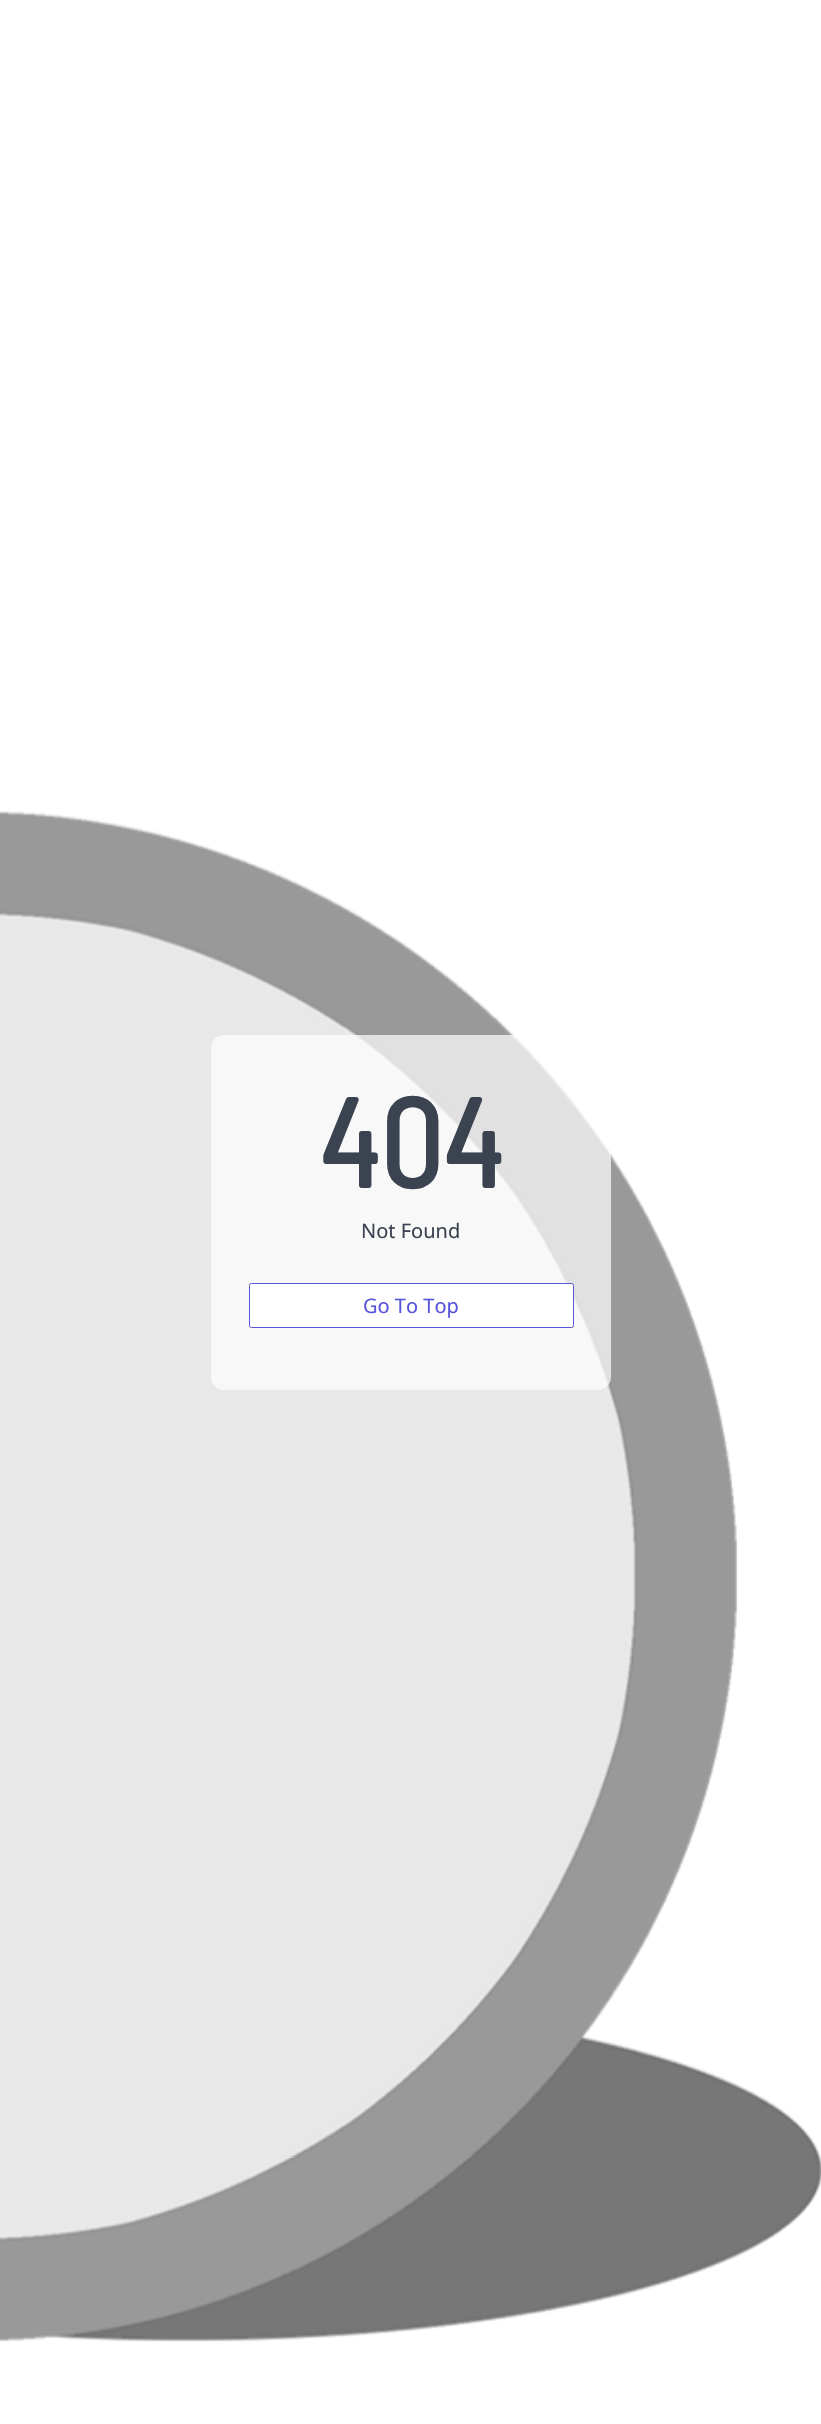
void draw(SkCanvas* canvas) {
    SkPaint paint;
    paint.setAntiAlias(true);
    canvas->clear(0xFFFFFFFF);
    canvas->drawImageRect(SkImages::DeferredFromEncodedData(SkData::MakeFromFileName("img1.png")), SkRect::MakeXYWH(0, 811, 821, 1531), SkSamplingOptions());
    paint.setColor(0xB3FFFFFF);
    canvas->drawRoundRect(SkRect::MakeXYWH(211, 1035, 400, 355), 13, 13, paint);
    SkFont font1(fontMgr->matchFamilyStyle("Barlow Semi Condensed", SkFontStyle::Bold()), 125);
    font1.setSubpixel(true);
    paint.setColor(0xFF3B4351);
    canvas->drawString("404", 319, 1188, font1, paint);
    SkFont font2(fontMgr->matchFamilyStyle("Noto Sans", SkFontStyle::Normal()), 20);
    font2.setSubpixel(true);
    canvas->drawString("Not Found", 361, 1238, font2, paint);
    paint.setColor(0xFFFFFFFF);
    canvas->drawRoundRect(SkRect::MakeXYWH(249.5f, 1283.5f, 324, 44), 2, 2, paint);
    paint.setStyle(SkPaint::kStroke_Style);
    paint.setStrokeWidth(1);
    paint.setColor(0xFF5755D9);
    canvas->drawRoundRect(SkRect::MakeXYWH(249.5f, 1283.5f, 324, 44), 2, 2, paint);
    paint.setStyle(SkPaint::kFill_Style);
    canvas->drawString("Go To Top", 363, 1313, font2, paint);
}
